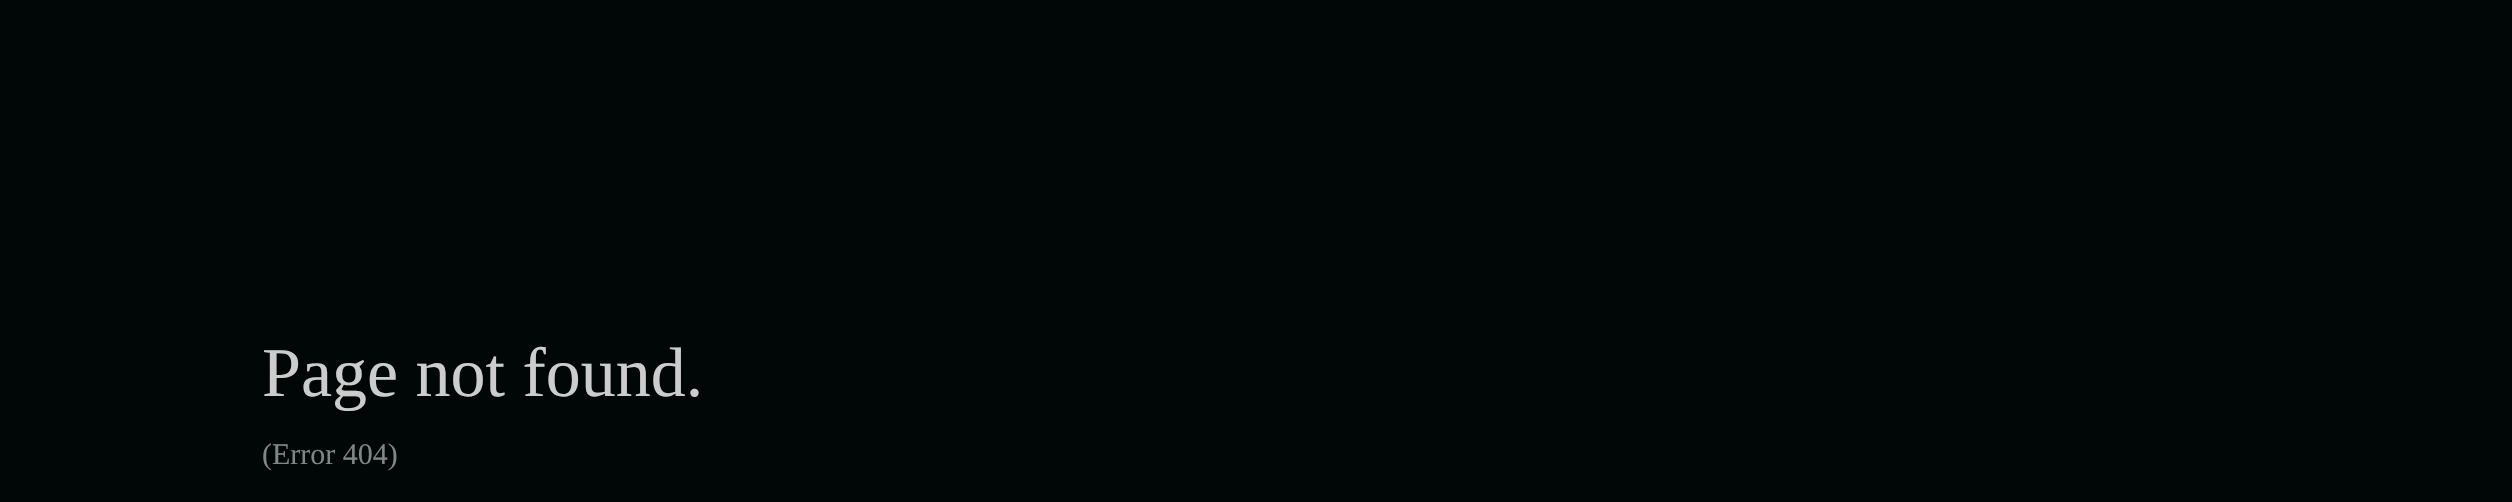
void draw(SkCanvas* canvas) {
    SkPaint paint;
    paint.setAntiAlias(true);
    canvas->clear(0xFF010606);
    SkFont font1(fontMgr->matchFamilyStyle("Liberation Serif", SkFontStyle::Normal()), 70);
    font1.setSubpixel(true);
    paint.setColor(0xFFCCCCCC);
    canvas->drawString("Page not found.", 262, 396, font1, paint);
    SkFont font2(fontMgr->matchFamilyStyle("Liberation Serif", SkFontStyle::Normal()), 30);
    font2.setSubpixel(true);
    paint.setColor(0xFF818586);
    canvas->drawString("(Error 404)", 262, 464, font2, paint);
}
